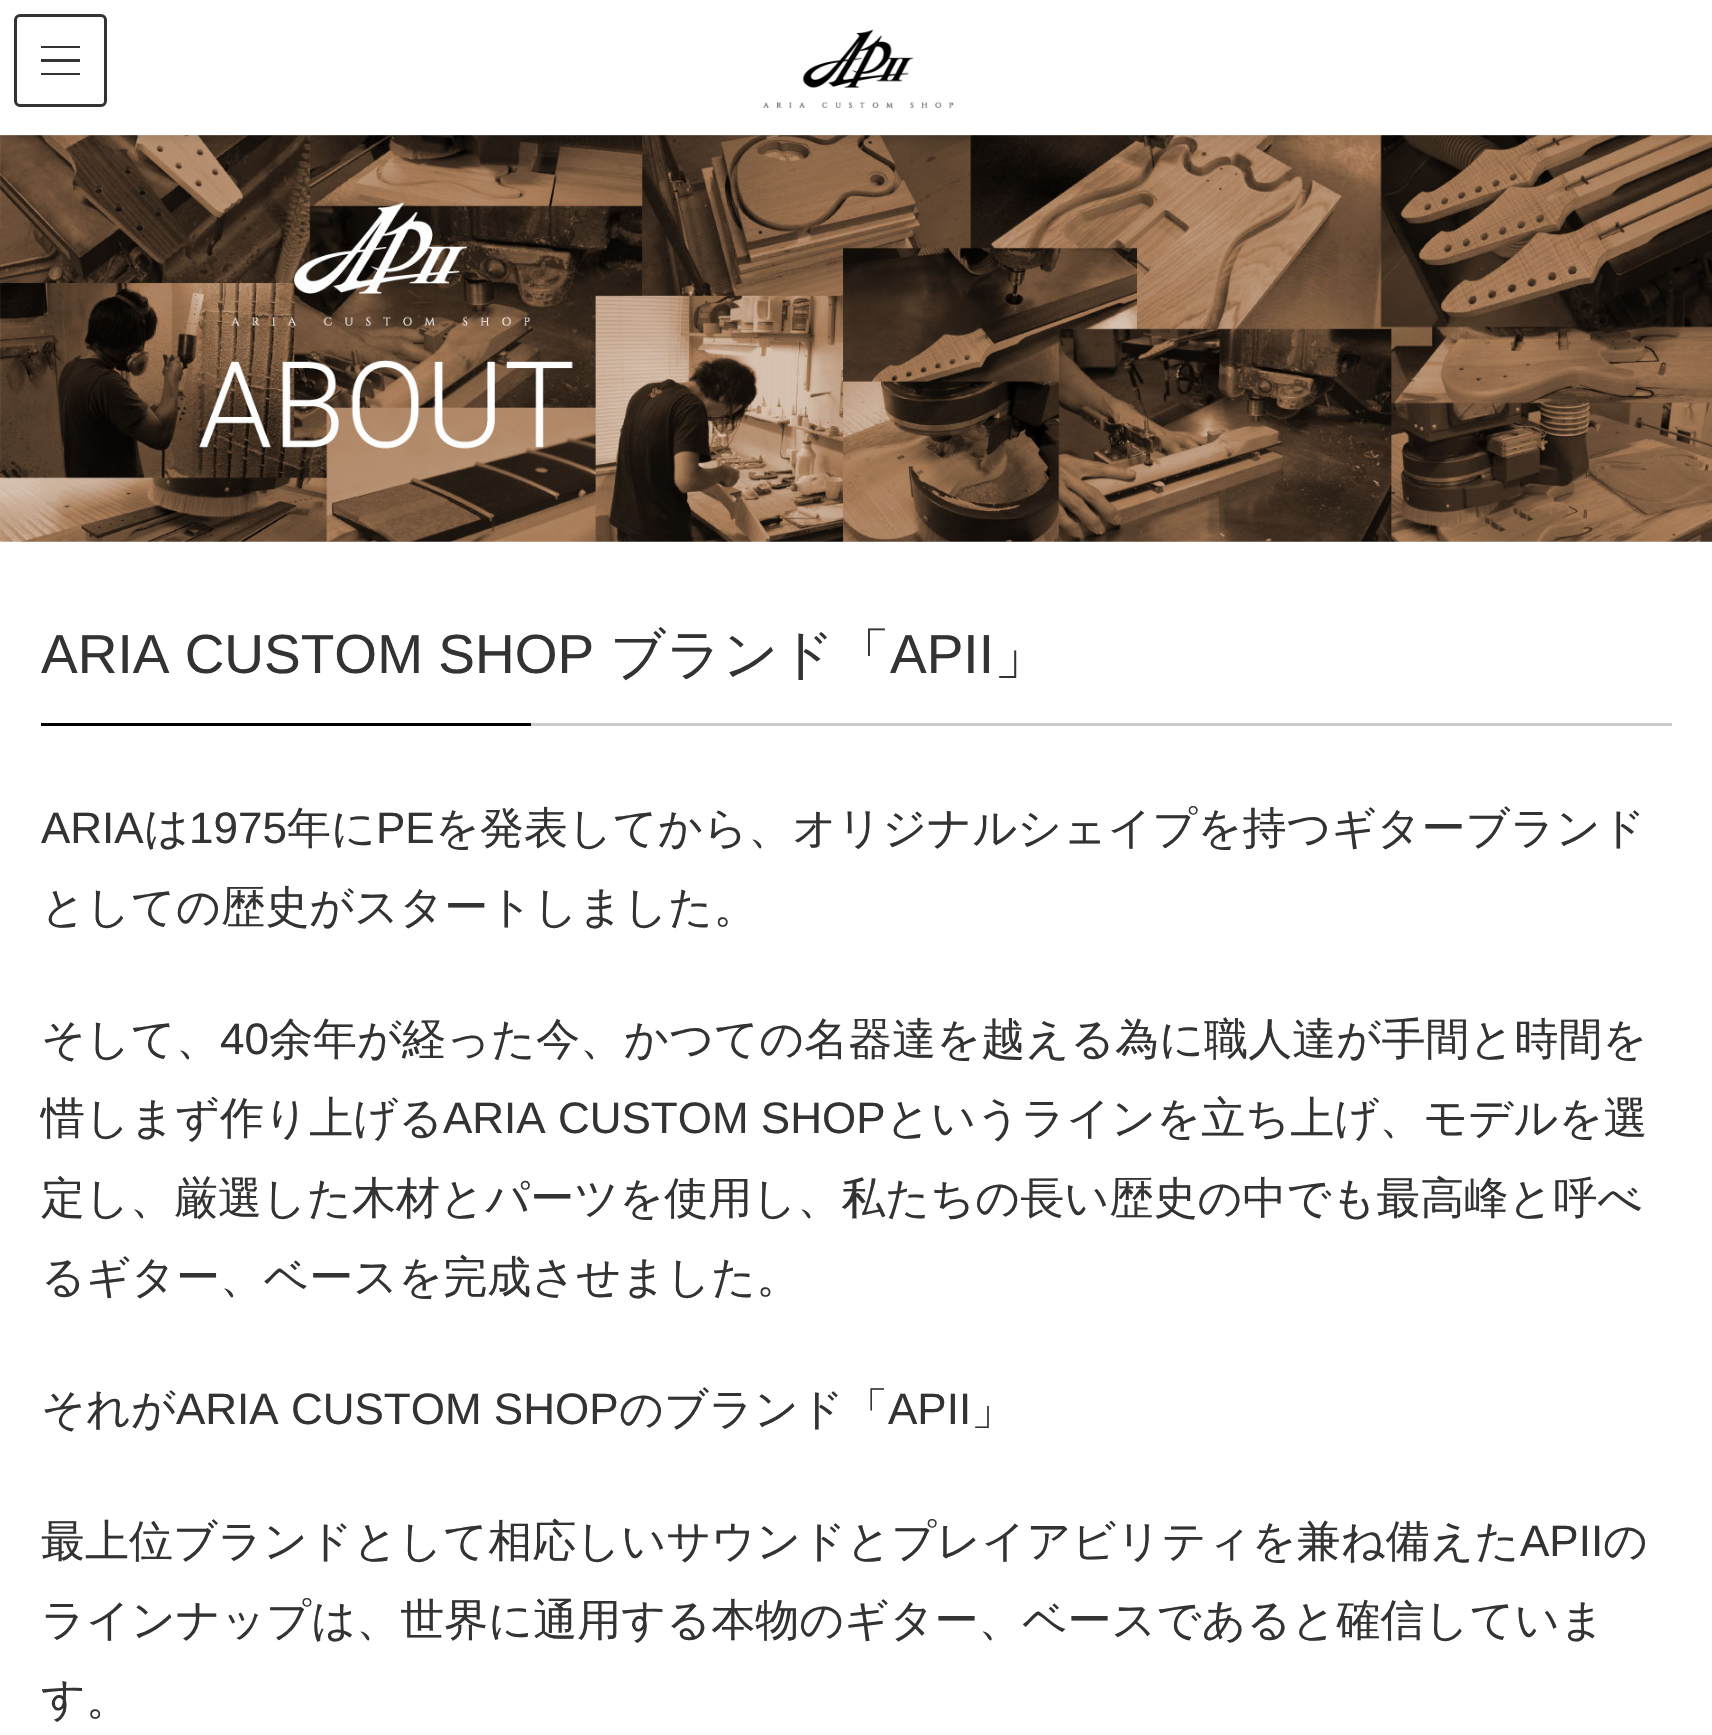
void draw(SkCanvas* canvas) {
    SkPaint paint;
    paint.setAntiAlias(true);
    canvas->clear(0xFFFFFFFF);
    canvas->drawImageRect(SkImages::DeferredFromEncodedData(SkData::MakeFromFileName("img2.png")), SkRect::MakeXYWH(0, 135, 1712, 407), SkSamplingOptions());
    paint.setColor(0x1A000000);
    paint.setMaskFilter(SkMaskFilter::MakeBlur(kNormal_SkBlurStyle, 4));
    canvas->drawRect(SkRect::MakeXYWH(0, 3, 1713, 135), paint);
    paint.setMaskFilter(nullptr);
    paint.setColor(0xFFFFFFFF);
    canvas->drawRect(SkRect::MakeXYWH(0, 0, 1712, 135), paint);
    canvas->drawImageRect(SkImages::DeferredFromEncodedData(SkData::MakeFromFileName("img1.png")), SkRect::MakeXYWH(762, 29, 192, 79), SkSamplingOptions());
    paint.setColor(0xFF333333);
    canvas->drawRect(SkRect::MakeXYWH(41, 46, 39, 2), paint);
    canvas->drawRect(SkRect::MakeXYWH(41, 59, 39, 3), paint);
    canvas->drawRect(SkRect::MakeXYWH(41, 73, 39, 2), paint);
    paint.setStyle(SkPaint::kStroke_Style);
    paint.setStrokeWidth(3);
    canvas->drawRoundRect(SkRect::MakeXYWH(15.5f, 15.5f, 90, 90), 4.5f, 4.5f, paint);
    paint.setStyle(SkPaint::kFill_Style);
    paint.setColor(0xFFCCCCCC);
    canvas->drawRect(SkRect::MakeXYWH(531, 723, 1141, 3), paint);
    SkFont font1(fontMgr->matchFamilyStyle("Liberation Sans", SkFontStyle::Normal()), 55);
    font1.setSubpixel(true);
    paint.setColor(0xFF333333);
    canvas->drawString("ARIA CUSTOM SHOP", 41, 673, font1, paint);
    SkFont font2(fontMgr->matchFamilyStyle("WenQuanYi Zen Hei", SkFontStyle(500, SkFontStyle::kNormal_Width, SkFontStyle::kUpright_Slant)), 55);
    font2.setSubpixel(true);
    canvas->drawString("ブランド「", 610, 673, font2, paint);
    canvas->drawString("APII", 890, 673, font1, paint);
    canvas->drawString("」", 994, 673, font2, paint);
    paint.setColor(0xFF000000);
    canvas->drawRect(SkRect::MakeXYWH(41, 723, 490, 3), paint);
    SkFont font3(fontMgr->matchFamilyStyle("Liberation Sans", SkFontStyle::Normal()), 44);
    font3.setSubpixel(true);
    paint.setColor(0xFF333333);
    canvas->drawString("ARIA", 41, 843, font3, paint);
    SkFont font4(fontMgr->matchFamilyStyle("WenQuanYi Zen Hei", SkFontStyle(500, SkFontStyle::kNormal_Width, SkFontStyle::kUpright_Slant)), 44);
    font4.setSubpixel(true);
    canvas->drawString("は", 144, 843, font4, paint);
    canvas->drawString("1975", 189, 843, font3, paint);
    canvas->drawString("年に", 287, 843, font4, paint);
    canvas->drawString("PE", 376, 843, font3, paint);
    canvas->drawString("を発表してから、オリジナルシェイプを持つギターブランド", 435, 843, font4, paint);
    canvas->drawString("としての歴史がスタートしました。", 41, 922, font4, paint);
    canvas->drawString("そして、", 41, 1054, font4, paint);
    canvas->drawString("40", 220, 1054, font3, paint);
    canvas->drawString("余年が経った今、かつての名器達を越える為に職人達が手間と時間を", 269, 1054, font4, paint);
    canvas->drawString("惜しまず作り上げる", 41, 1133, font4, paint);
    canvas->drawString("ARIA CUSTOM SHOP", 443, 1133, font3, paint);
    canvas->drawString("というラインを立ち上げ、モデルを選", 886, 1133, font4, paint);
    canvas->drawString("定し、厳選した木材とパーツを使用し、私たちの長い歴史の中でも最高峰と呼べ", 41, 1213, font4, paint);
    canvas->drawString("るギター、ベースを完成させました。", 41, 1292, font4, paint);
    canvas->drawString("それが", 41, 1424, font4, paint);
    canvas->drawString("ARIA CUSTOM SHOP", 176, 1424, font3, paint);
    canvas->drawString("のブランド「", 619, 1424, font4, paint);
    canvas->drawString("APII", 888, 1424, font3, paint);
    canvas->drawString("」", 971, 1424, font4, paint);
    canvas->drawString("最上位ブランドとして相応しいサウンドとプレイアビリティを兼ね備えた", 41, 1556, font4, paint);
    canvas->drawString("APII", 1520, 1556, font3, paint);
    canvas->drawString("の", 1603, 1556, font4, paint);
    canvas->drawString("ラインナップは、世界に通用する本物のギター、ベースであると確信していま", 41, 1635, font4, paint);
    canvas->drawString("す。", 41, 1714, font4, paint);
}
